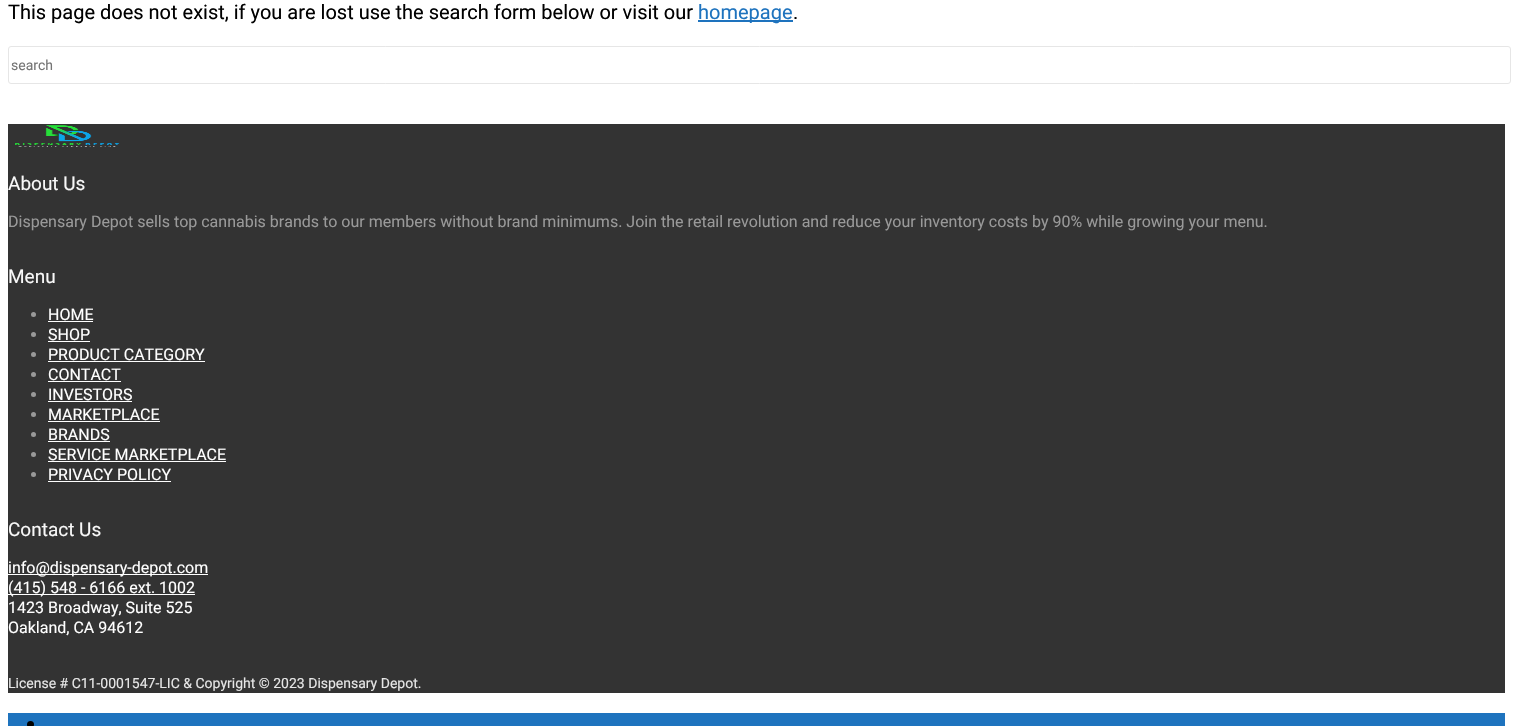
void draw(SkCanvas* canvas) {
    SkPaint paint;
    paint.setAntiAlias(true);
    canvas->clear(0xFFFFFFFF);
    SkFont font1(fontMgr->matchFamilyStyle("Roboto", SkFontStyle::Normal()), 20);
    font1.setSubpixel(true);
    paint.setColor(0xFF000000);
    canvas->drawString("This page does not exist, if you are lost use the search form below or visit our", 8, 19, font1, paint);
    paint.setColor(0xFF1E73BE);
    canvas->drawRect(SkRect::MakeXYWH(698, 20, 95, 2), paint);
    canvas->drawString("homepage", 698, 19, font1, paint);
    paint.setColor(0xFF000000);
    canvas->drawString(".", 793, 19, font1, paint);
    paint.setStyle(SkPaint::kStroke_Style);
    paint.setStrokeWidth(1);
    paint.setColor(0xFFE6E6E6);
    canvas->drawRoundRect(SkRect::MakeXYWH(8.5f, 46.5f, 1502, 37), 2.5f, 2.5f, paint);
    SkFont font2(fontMgr->matchFamilyStyle("Roboto", SkFontStyle::Normal()), 14);
    font2.setSubpixel(true);
    paint.setStyle(SkPaint::kFill_Style);
    paint.setColor(0xFF757575);
    canvas->drawString("search", 11, 70, font2, paint);
    paint.setColor(0xFF333333);
    canvas->drawRect(SkRect::MakeXYWH(8, 124, 1497, 569), paint);
    canvas->drawImageRect(SkImages::DeferredFromEncodedData(SkData::MakeFromFileName("img1.png")), SkRect::MakeXYWH(15, 125, 105, 22), SkSamplingOptions());
    SkFont font3(fontMgr->matchFamilyStyle("Roboto", SkFontStyle::Normal()), 19);
    font3.setSubpixel(true);
    paint.setColor(0xFFF8F8F8);
    canvas->drawString("About Us", 8, 190, font3, paint);
    SkFont font4(fontMgr->matchFamilyStyle("Roboto", SkFontStyle::Normal()), 16);
    font4.setSubpixel(true);
    paint.setColor(0xFF999999);
    canvas->drawString("Dispensary Depot sells top cannabis brands to our members without brand minimums. Join the retail revolution and reduce your inventory costs by 90% while growing your menu.", 8, 227, font4, paint);
    paint.setColor(0xFFF8F8F8);
    canvas->drawString("Menu", 8, 283, font3, paint);
    paint.setColor(0xFF999999);
    canvas->drawCircle(33.5f, 314.5f, 2.5f, paint);
    paint.setColor(0xFFFFFFFF);
    canvas->drawString("HOME", 48, 320, font4, paint);
    canvas->drawRect(SkRect::MakeXYWH(48, 321, 45, 1), paint);
    paint.setColor(0xFF999999);
    canvas->drawCircle(33.5f, 334.5f, 2.5f, paint);
    paint.setColor(0xFFFFFFFF);
    canvas->drawString("SHOP", 48, 340, font4, paint);
    canvas->drawRect(SkRect::MakeXYWH(48, 341, 42, 1), paint);
    paint.setColor(0xFF999999);
    canvas->drawCircle(33.5f, 354.5f, 2.5f, paint);
    paint.setColor(0xFFFFFFFF);
    canvas->drawString("PRODUCT CATEGORY", 48, 360, font4, paint);
    canvas->drawRect(SkRect::MakeXYWH(48, 361, 157, 1), paint);
    paint.setColor(0xFF999999);
    canvas->drawCircle(33.5f, 374.5f, 2.5f, paint);
    paint.setColor(0xFFFFFFFF);
    canvas->drawString("CONTACT", 48, 380, font4, paint);
    canvas->drawRect(SkRect::MakeXYWH(48, 381, 73, 1), paint);
    paint.setColor(0xFF999999);
    canvas->drawCircle(33.5f, 394.5f, 2.5f, paint);
    paint.setColor(0xFFFFFFFF);
    canvas->drawString("INVESTORS", 48, 400, font4, paint);
    canvas->drawRect(SkRect::MakeXYWH(48, 401, 84, 1), paint);
    paint.setColor(0xFF999999);
    canvas->drawCircle(33.5f, 414.5f, 2.5f, paint);
    paint.setColor(0xFFFFFFFF);
    canvas->drawString("MARKETPLACE", 48, 420, font4, paint);
    canvas->drawRect(SkRect::MakeXYWH(48, 421, 112, 1), paint);
    paint.setColor(0xFF999999);
    canvas->drawCircle(33.5f, 434.5f, 2.5f, paint);
    paint.setColor(0xFFFFFFFF);
    canvas->drawString("BRANDS", 48, 440, font4, paint);
    canvas->drawRect(SkRect::MakeXYWH(48, 441, 62, 1), paint);
    paint.setColor(0xFF999999);
    canvas->drawCircle(33.5f, 454.5f, 2.5f, paint);
    paint.setColor(0xFFFFFFFF);
    canvas->drawString("SERVICE MARKETPLACE", 48, 460, font4, paint);
    canvas->drawRect(SkRect::MakeXYWH(48, 461, 178, 1), paint);
    paint.setColor(0xFF999999);
    canvas->drawCircle(33.5f, 474.5f, 2.5f, paint);
    paint.setColor(0xFFFFFFFF);
    canvas->drawString("PRIVACY POLICY", 48, 480, font4, paint);
    canvas->drawRect(SkRect::MakeXYWH(48, 481, 123, 1), paint);
    paint.setColor(0xFFF8F8F8);
    canvas->drawString("Contact Us", 8, 536, font3, paint);
    paint.setColor(0xFFFFFFFF);
    canvas->drawRect(SkRect::MakeXYWH(8, 574, 200, 1), paint);
    canvas->drawString("info@dispensary-depot.com", 8, 573, font4, paint);
    canvas->drawRect(SkRect::MakeXYWH(8, 594, 187, 1), paint);
    canvas->drawString("(415) 548 - 6166 ext. 1002", 8, 593, font4, paint);
    canvas->drawString("1423 Broadway, Suite 525", 8, 613, font4, paint);
    canvas->drawString("Oakland, CA 94612", 8, 633, font4, paint);
    paint.setColor(0xFFE6E6E6);
    canvas->drawString("License # C11-0001547-LIC & Copyright © 2023 Dispensary Depot.", 8, 688, font2, paint);
    paint.setColor(0xFF1E73BE);
    canvas->drawRect(SkRect::MakeXYWH(8, 713, 1497, 13), paint);
    paint.setColor(0xFF000000);
    canvas->drawCircle(30.5f, 724.5f, 3.5f, paint);
}
